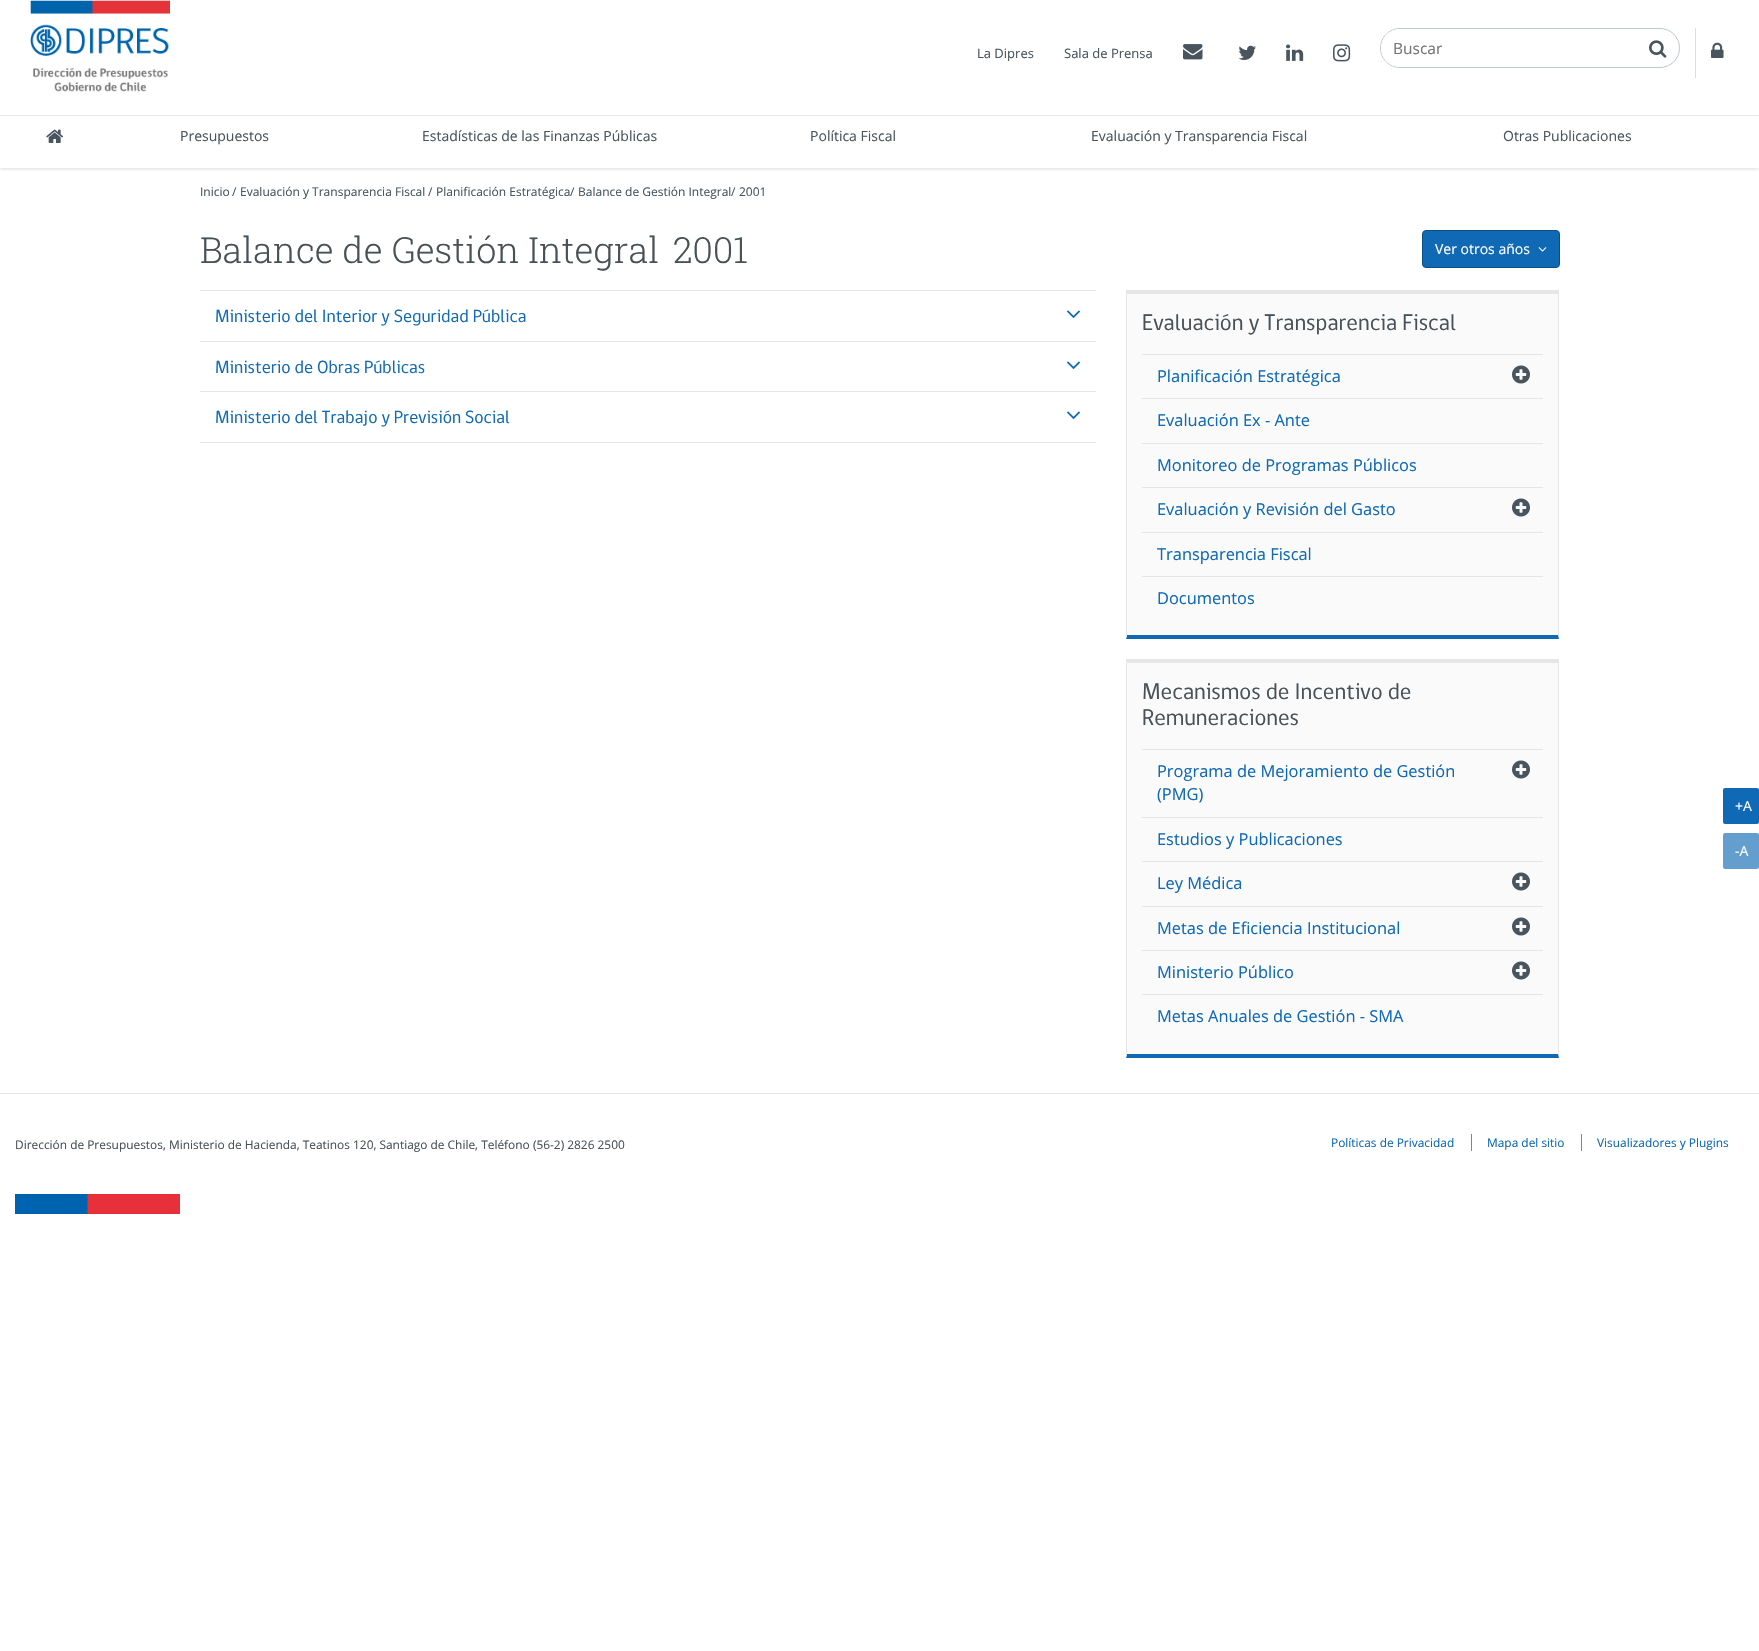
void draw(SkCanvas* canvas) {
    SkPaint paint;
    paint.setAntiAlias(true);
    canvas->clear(0xFFFFFFFF);
    canvas->save();
    canvas->clipRect(SkRect::MakeXYWH(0, 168, 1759, 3));
    paint.setColor(0x33000000);
    paint.setMaskFilter(SkMaskFilter::MakeBlur(kNormal_SkBlurStyle, 2.5f));
    canvas->drawRect(SkRect::MakeXYWH(0, 0, 1759, 168), paint);
    paint.setMaskFilter(nullptr);
    canvas->restore();
    paint.setColor(0xFFE6E6E6);
    canvas->drawRect(SkRect::MakeXYWH(0, 115, 1759, 1), paint);
    canvas->drawImageRect(SkImages::DeferredFromEncodedData(SkData::MakeFromFileName("img1.png")), SkRect::MakeXYWH(30, 0, 140, 92), SkSamplingOptions());
    SkFont font1(fontMgr->matchFamilyStyle("Open Sans", SkFontStyle::Normal()), 13);
    font1.setSubpixel(true);
    paint.setColor(0xFF48545E);
    canvas->drawString("La Dipres", 977, 58, font1, paint);
    canvas->drawString("Sala de Prensa", 1064, 58, font1, paint);
    canvas->drawImageRect(SkImages::DeferredFromEncodedData(SkData::MakeFromFileName("img2.png")), SkRect::MakeXYWH(1183, 44, 20, 16), SkSamplingOptions());
    canvas->drawImageRect(SkImages::DeferredFromEncodedData(SkData::MakeFromFileName("img3.png")), SkRect::MakeXYWH(1238, 45, 18, 15), SkSamplingOptions());
    canvas->drawImageRect(SkImages::DeferredFromEncodedData(SkData::MakeFromFileName("img4.png")), SkRect::MakeXYWH(1286, 44, 18, 17), SkSamplingOptions());
    canvas->drawImageRect(SkImages::DeferredFromEncodedData(SkData::MakeFromFileName("img5.png")), SkRect::MakeXYWH(1333, 44, 18, 18), SkSamplingOptions());
    paint.setStyle(SkPaint::kStroke_Style);
    paint.setStrokeWidth(1);
    paint.setColor(0xFFBDC9D1);
    canvas->drawRoundRect(SkRect::MakeXYWH(1380.5f, 28.5f, 299, 39), 19.5f, 19.5f, paint);
    paint.setStyle(SkPaint::kFill_Style);
    paint.setColor(0xFFFFFFFF);
    canvas->drawRoundRect(SkRect::MakeXYWH(1381, 29, 256, 38), 19, 19, paint);
    SkFont font2(fontMgr->matchFamilyStyle("Open Sans", SkFontStyle::Normal()), 15.5f);
    font2.setSubpixel(true);
    paint.setColor(0xFF757575);
    canvas->drawString("Buscar", 1393, 54, font2, paint);
    canvas->drawImageRect(SkImages::DeferredFromEncodedData(SkData::MakeFromFileName("img6.png")), SkRect::MakeXYWH(1649, 40, 18, 18), SkSamplingOptions());
    paint.setColor(0xFFDDDDDD);
    canvas->drawRect(SkRect::MakeXYWH(1695, 28, 1, 50), paint);
    canvas->drawImageRect(SkImages::DeferredFromEncodedData(SkData::MakeFromFileName("img7.png")), SkRect::MakeXYWH(1711, 42, 13, 16), SkSamplingOptions());
    canvas->drawImageRect(SkImages::DeferredFromEncodedData(SkData::MakeFromFileName("img8.png")), SkRect::MakeXYWH(46, 129, 17, 14), SkSamplingOptions());
    SkFont font3(fontMgr->matchFamilyStyle("Open Sans", SkFontStyle::Normal()), 14);
    font3.setSubpixel(true);
    paint.setColor(0xFF48545E);
    canvas->drawString("Presupuestos", 180, 141, font3, paint);
    canvas->drawString("Estadísticas de las Finanzas Públicas", 422, 141, font3, paint);
    canvas->drawString("Política Fiscal", 810, 141, font3, paint);
    canvas->drawString("Evaluación y Transparencia Fiscal", 1091, 141, font3, paint);
    canvas->drawString("Otras Publicaciones", 1503, 141, font3, paint);
    SkFont font4(fontMgr->matchFamilyStyle("Open Sans", SkFontStyle::Normal()), 12);
    font4.setSubpixel(true);
    canvas->drawString("Inicio", 200, 196, font4, paint);
    paint.setColor(0xFF475156);
    canvas->drawString("/", 232, 196, font4, paint);
    paint.setColor(0xFF48545E);
    canvas->drawString("Evaluación y Transparencia Fiscal", 240, 196, font4, paint);
    paint.setColor(0xFF475156);
    canvas->drawString("/", 428, 196, font4, paint);
    paint.setColor(0xFF48545E);
    canvas->drawString("Planificación Estratégica", 436, 196, font4, paint);
    paint.setColor(0xFF475156);
    canvas->drawString("/", 570, 196, font4, paint);
    paint.setColor(0xFF48545E);
    canvas->drawString("Balance de Gestión Integral", 578, 196, font4, paint);
    paint.setColor(0xFF475156);
    canvas->drawString("/", 731, 196, font4, paint);
    paint.setColor(0xFF48545E);
    canvas->drawString("2001", 739, 196, font4, paint);
    SkFont font5(fontMgr->matchFamilyStyle("Roboto Slab", SkFontStyle(300, SkFontStyle::kNormal_Width, SkFontStyle::kUpright_Slant)), 36);
    font5.setSubpixel(true);
    paint.setColor(0xFF475156);
    canvas->drawString("Balance de Gestión Integral", 200, 263, font5, paint);
    canvas->drawString("2001", 673, 263, font5, paint);
    paint.setColor(0xFF0F69B4);
    canvas->drawRoundRect(SkRect::MakeXYWH(1422.5f, 230.5f, 137, 37), 3.5f, 3.5f, paint);
    paint.setStyle(SkPaint::kStroke_Style);
    paint.setColor(0xFF0B4E85);
    canvas->drawRoundRect(SkRect::MakeXYWH(1422.5f, 230.5f, 137, 37), 3.5f, 3.5f, paint);
    paint.setStyle(SkPaint::kFill_Style);
    paint.setColor(0xFFFFFFFF);
    canvas->drawString("Ver otros años", 1435, 254, font3, paint);
    canvas->drawImageRect(SkImages::DeferredFromEncodedData(SkData::MakeFromFileName("img9.png")), SkRect::MakeXYWH(1538, 247, 9, 5), SkSamplingOptions());
    paint.setColor(0xFFE6E6E6);
    canvas->drawRect(SkRect::MakeXYWH(200, 442, 896, 1), paint);
    canvas->drawRect(SkRect::MakeXYWH(200, 290, 896, 1), paint);
    SkFont font6(fontMgr->matchFamilyStyle("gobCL", SkFontStyle::Normal()), 18);
    font6.setSubpixel(true);
    paint.setColor(0xFF0F69B4);
    canvas->drawString("Ministerio del Interior y Seguridad Pública", 215, 322, font6, paint);
    canvas->drawImageRect(SkImages::DeferredFromEncodedData(SkData::MakeFromFileName("img10.png")), SkRect::MakeXYWH(1067, 310, 13, 8), SkSamplingOptions());
    paint.setColor(0xFFE6E6E6);
    canvas->drawRect(SkRect::MakeXYWH(200, 341, 896, 1), paint);
    paint.setColor(0xFF0F69B4);
    canvas->drawString("Ministerio de Obras Públicas", 215, 373, font6, paint);
    canvas->drawImageRect(SkImages::DeferredFromEncodedData(SkData::MakeFromFileName("img10.png")), SkRect::MakeXYWH(1067, 361, 13, 8), SkSamplingOptions());
    paint.setColor(0xFFE6E6E6);
    canvas->drawRect(SkRect::MakeXYWH(200, 391, 896, 1), paint);
    paint.setColor(0xFF0F69B4);
    canvas->drawString("Ministerio del Trabajo y Previsión Social", 215, 423, font6, paint);
    canvas->drawImageRect(SkImages::DeferredFromEncodedData(SkData::MakeFromFileName("img10.png")), SkRect::MakeXYWH(1067, 411, 13, 8), SkSamplingOptions());
    paint.setColor(0xFFFAFAFA);
    canvas->drawRect(SkRect::MakeXYWH(1127, 294, 431, 341), paint);
    paint.setColor(0xFFE6E6E6);
    canvas->drawRect(SkRect::MakeXYWH(1126, 290, 433, 4), paint);
    canvas->drawPath(SkPathBuilder().moveTo(1559, 290).lineTo(1559, 639).lineTo(1558, 635).lineTo(1558, 294).close().detach(), paint);
    paint.setColor(0xFF0F69B4);
    canvas->drawPath(SkPathBuilder().moveTo(1559, 639).lineTo(1126, 639).lineTo(1127, 635).lineTo(1558, 635).close().detach(), paint);
    paint.setColor(0xFFE6E6E6);
    canvas->drawPath(SkPathBuilder().moveTo(1126, 639).lineTo(1126, 290).lineTo(1127, 294).lineTo(1127, 635).close().detach(), paint);
    SkFont font7(fontMgr->matchFamilyStyle("gobCL", SkFontStyle::Normal()), 23);
    font7.setSubpixel(true);
    paint.setColor(0xFF475156);
    canvas->drawString("Evaluación y Transparencia Fiscal", 1142, 330, font7, paint);
    paint.setColor(0xFFE6E6E6);
    canvas->drawRect(SkRect::MakeXYWH(1142, 354, 401, 1), paint);
    canvas->drawRect(SkRect::MakeXYWH(1142, 398, 401, 1), paint);
    SkFont font8(fontMgr->matchFamilyStyle("Open Sans", SkFontStyle::Normal()), 16.4f);
    font8.setSubpixel(true);
    paint.setColor(0xFF0F69B4);
    canvas->drawString("Planificación Estratégica", 1157, 382, font8, paint);
    canvas->drawImageRect(SkImages::DeferredFromEncodedData(SkData::MakeFromFileName("img11.png")), SkRect::MakeXYWH(1512, 365, 18, 19), SkSamplingOptions());
    paint.setColor(0xFFE6E6E6);
    canvas->drawRect(SkRect::MakeXYWH(1142, 443, 401, 1), paint);
    paint.setColor(0xFF0F69B4);
    canvas->drawString("Evaluación Ex - Ante", 1157, 426, font8, paint);
    paint.setColor(0xFFE6E6E6);
    canvas->drawRect(SkRect::MakeXYWH(1142, 487, 401, 1), paint);
    paint.setColor(0xFF0F69B4);
    canvas->drawString("Monitoreo de Programas Públicos", 1157, 471, font8, paint);
    paint.setColor(0xFFE6E6E6);
    canvas->drawRect(SkRect::MakeXYWH(1142, 532, 401, 1), paint);
    paint.setColor(0xFF0F69B4);
    canvas->drawString("Evaluación y Revisión del Gasto", 1157, 515, font8, paint);
    canvas->drawImageRect(SkImages::DeferredFromEncodedData(SkData::MakeFromFileName("img11.png")), SkRect::MakeXYWH(1512, 498, 18, 19), SkSamplingOptions());
    paint.setColor(0xFFE6E6E6);
    canvas->drawRect(SkRect::MakeXYWH(1142, 576, 401, 1), paint);
    paint.setColor(0xFF0F69B4);
    canvas->drawString("Transparencia Fiscal", 1157, 560, font8, paint);
    canvas->drawString("Documentos", 1157, 604, font8, paint);
    paint.setColor(0xFFFAFAFA);
    canvas->drawRect(SkRect::MakeXYWH(1127, 663, 431, 391), paint);
    paint.setColor(0xFFE6E6E6);
    canvas->drawRect(SkRect::MakeXYWH(1126, 659, 433, 4), paint);
    canvas->drawPath(SkPathBuilder().moveTo(1559, 659).lineTo(1559, 1058).lineTo(1558, 1054).lineTo(1558, 663).close().detach(), paint);
    paint.setColor(0xFF0F69B4);
    canvas->drawPath(SkPathBuilder().moveTo(1559, 1058).lineTo(1126, 1058).lineTo(1127, 1054).lineTo(1558, 1054).close().detach(), paint);
    paint.setColor(0xFFE6E6E6);
    canvas->drawPath(SkPathBuilder().moveTo(1126, 1058).lineTo(1126, 659).lineTo(1127, 663).lineTo(1127, 1054).close().detach(), paint);
    paint.setColor(0xFF475156);
    canvas->drawString("Mecanismos de Incentivo de", 1142, 699, font7, paint);
    canvas->drawString("Remuneraciones", 1142, 725, font7, paint);
    paint.setColor(0xFFE6E6E6);
    canvas->drawRect(SkRect::MakeXYWH(1142, 749, 401, 1), paint);
    canvas->drawRect(SkRect::MakeXYWH(1142, 817, 401, 1), paint);
    paint.setColor(0xFF0F69B4);
    canvas->drawString("Programa de Mejoramiento de Gestión", 1157, 777, font8, paint);
    canvas->drawString("(PMG)", 1157, 800, font8, paint);
    canvas->drawImageRect(SkImages::DeferredFromEncodedData(SkData::MakeFromFileName("img11.png")), SkRect::MakeXYWH(1512, 760, 18, 19), SkSamplingOptions());
    paint.setColor(0xFFE6E6E6);
    canvas->drawRect(SkRect::MakeXYWH(1142, 861, 401, 1), paint);
    paint.setColor(0xFF0F69B4);
    canvas->drawString("Estudios y Publicaciones", 1157, 845, font8, paint);
    paint.setColor(0xFFE6E6E6);
    canvas->drawRect(SkRect::MakeXYWH(1142, 906, 401, 1), paint);
    paint.setColor(0xFF0F69B4);
    canvas->drawString("Ley Médica", 1157, 889, font8, paint);
    canvas->drawImageRect(SkImages::DeferredFromEncodedData(SkData::MakeFromFileName("img11.png")), SkRect::MakeXYWH(1512, 872, 18, 19), SkSamplingOptions());
    paint.setColor(0xFFE6E6E6);
    canvas->drawRect(SkRect::MakeXYWH(1142, 950, 401, 1), paint);
    paint.setColor(0xFF0F69B4);
    canvas->drawString("Metas de Eficiencia Institucional", 1157, 934, font8, paint);
    canvas->drawImageRect(SkImages::DeferredFromEncodedData(SkData::MakeFromFileName("img11.png")), SkRect::MakeXYWH(1512, 917, 18, 19), SkSamplingOptions());
    paint.setColor(0xFFE6E6E6);
    canvas->drawRect(SkRect::MakeXYWH(1142, 994, 401, 1), paint);
    paint.setColor(0xFF0F69B4);
    canvas->drawString("Ministerio Público", 1157, 978, font8, paint);
    canvas->drawImageRect(SkImages::DeferredFromEncodedData(SkData::MakeFromFileName("img11.png")), SkRect::MakeXYWH(1512, 961, 18, 19), SkSamplingOptions());
    canvas->drawString("Metas Anuales de Gestión - SMA", 1157, 1022, font8, paint);
    canvas->drawRoundRect(SkRect::MakeXYWH(1722, 787, 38, 38), 3, 3, paint);
    paint.setStyle(SkPaint::kStroke_Style);
    paint.setStrokeWidth(2);
    paint.setColor(0xFFFFFFFF);
    canvas->drawRoundRect(SkRect::MakeXYWH(1722, 787, 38, 38), 3, 3, paint);
    paint.setStyle(SkPaint::kFill_Style);
    canvas->drawString("+A", 1735, 811, font3, paint);
    paint.setColor(0xFF639ECE);
    canvas->drawRoundRect(SkRect::MakeXYWH(1722, 832, 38, 38), 3, 3, paint);
    paint.setStyle(SkPaint::kStroke_Style);
    paint.setColor(0xFFFFFFFF);
    canvas->drawRoundRect(SkRect::MakeXYWH(1722, 832, 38, 38), 3, 3, paint);
    paint.setStyle(SkPaint::kFill_Style);
    canvas->drawString("-A", 1735, 856, font3, paint);
    paint.setColor(0xFFE6E6E6);
    canvas->drawRect(SkRect::MakeXYWH(0, 1093, 1759, 1), paint);
    canvas->drawImageRect(SkImages::DeferredFromEncodedData(SkData::MakeFromFileName("img12.png")), SkRect::MakeXYWH(15, 1194, 165, 20), SkSamplingOptions());
    SkFont font9(fontMgr->matchFamilyStyle("Open Sans", SkFontStyle::Normal()), 11.9f);
    font9.setSubpixel(true);
    paint.setColor(0xFF475156);
    canvas->drawString("Dirección de Presupuestos, Ministerio de Hacienda, Teatinos 120, Santiago de Chile, Teléfono (56-2) 2826 2500", 15, 1149, font9, paint);
    paint.setColor(0xFF0F69B4);
    canvas->drawString("Políticas de Privacidad", 1331, 1147, font9, paint);
    paint.setColor(0xFF7A8791);
    canvas->drawRect(SkRect::MakeXYWH(1471, 1134, 1, 17), paint);
    paint.setColor(0xFF0F69B4);
    canvas->drawString("Mapa del sitio", 1487, 1147, font9, paint);
    paint.setColor(0xFF7A8791);
    canvas->drawRect(SkRect::MakeXYWH(1581, 1134, 1, 17), paint);
    paint.setColor(0xFF0F69B4);
    canvas->drawString("Visualizadores y Plugins", 1597, 1147, font9, paint);
}
